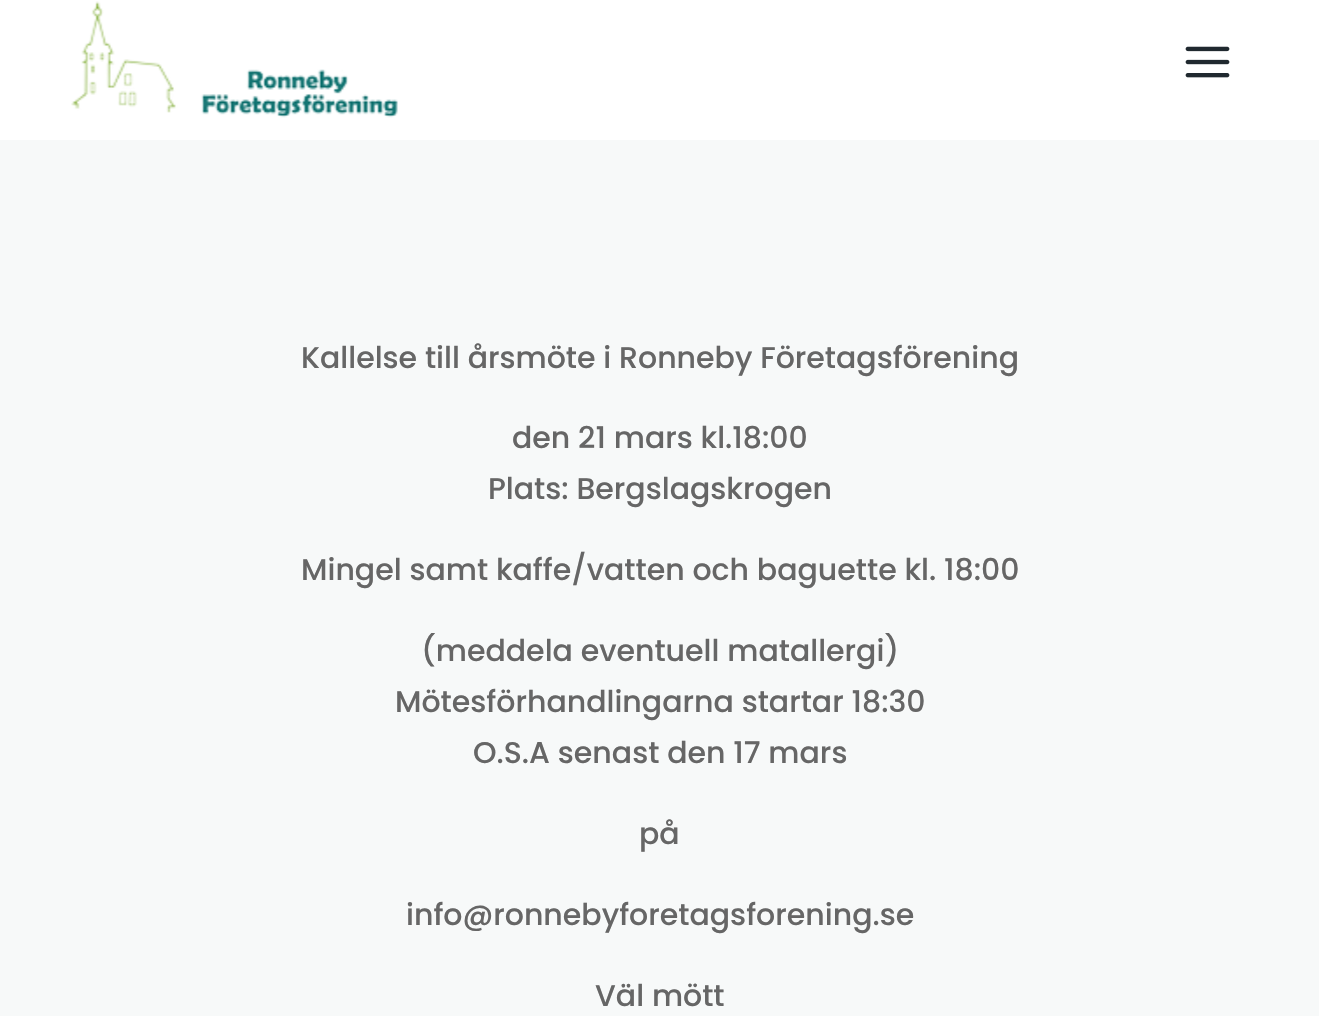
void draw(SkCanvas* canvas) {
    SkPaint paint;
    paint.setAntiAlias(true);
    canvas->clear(0xFFFFFFFF);
    canvas->drawImageRect(SkImages::DeferredFromEncodedData(SkData::MakeFromFileName("img1.png")), SkRect::MakeXYWH(71, 1, 327, 117), SkSamplingOptions());
    canvas->drawImageRect(SkImages::DeferredFromEncodedData(SkData::MakeFromFileName("img2.png")), SkRect::MakeXYWH(1185, 46, 45, 32), SkSamplingOptions());
    paint.setColor(0xFFF7F9F9);
    canvas->drawRect(SkRect::MakeXYWH(0, 140, 1319, 876), paint);
    SkFont font1(fontMgr->matchFamilyStyle("Poppins", SkFontStyle(500, SkFontStyle::kNormal_Width, SkFontStyle::kUpright_Slant)), 30);
    font1.setSubpixel(true);
    paint.setColor(0xFF666666);
    canvas->drawString("Kallelse till årsmöte i Ronneby Företagsförening", 301, 368, font1, paint);
    canvas->drawString("den 21 mars kl.18:00", 512, 448, font1, paint);
    canvas->drawString("Plats: Bergslagskrogen", 488, 499, font1, paint);
    canvas->drawString("Mingel samt kaffe/vatten och baguette kl. 18:00", 301, 580, font1, paint);
    canvas->drawString("(meddela eventuell matallergi)", 421, 661, font1, paint);
    canvas->drawString("Mötesförhandlingarna startar 18:30", 395, 712, font1, paint);
    canvas->drawString("O.S.A senast den 17 mars", 473, 763, font1, paint);
    canvas->drawString("på", 639, 844, font1, paint);
    canvas->drawString("info@ronnebyforetagsforening.se", 406, 925, font1, paint);
    canvas->drawString("Väl mött", 595, 1006, font1, paint);
}
